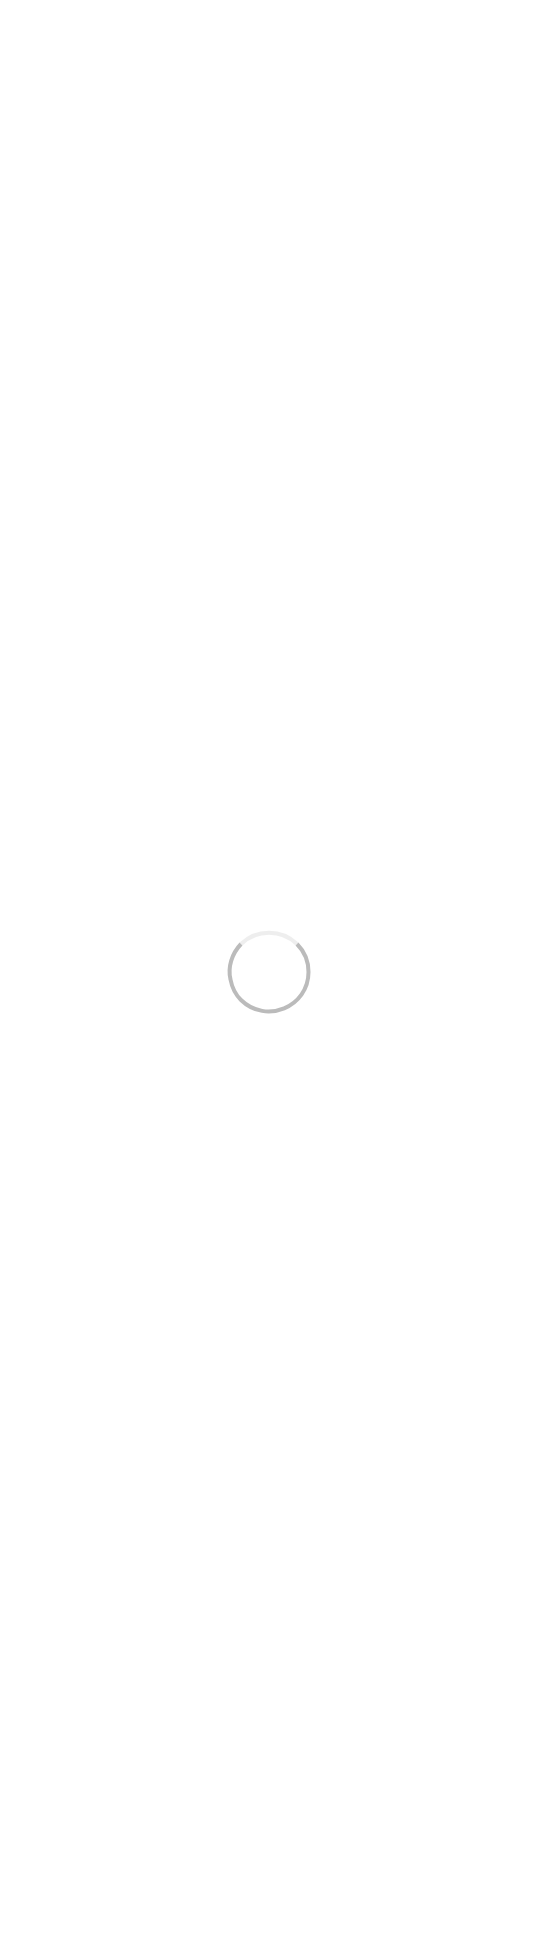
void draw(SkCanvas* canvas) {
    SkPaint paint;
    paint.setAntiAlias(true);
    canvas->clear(0xFFFFFFFF);
    paint.setStyle(SkPaint::kStroke_Style);
    paint.setStrokeWidth(4);
    paint.setColor(0xFFEEEEEE);
    canvas->drawPath(SkPathBuilder().moveTo(241, 944).cubicTo(256.5f, 929, 281.5f, 929, 297, 944).detach(), paint);
    paint.setColor(0xFFBBBBBB);
    canvas->drawPath(SkPathBuilder().moveTo(297, 944).cubicTo(304.5f, 951.5f, 308.5f, 961.5f, 308.5f, 972).cubicTo(308.5f, 1007, 266, 1024.5f, 241, 1000).cubicTo(235.5f, 994.5f, 232, 987.5f, 230.5f, 979.5f).cubicTo(227.5f, 967, 232, 953.5f, 241, 944).detach(), paint);
}
